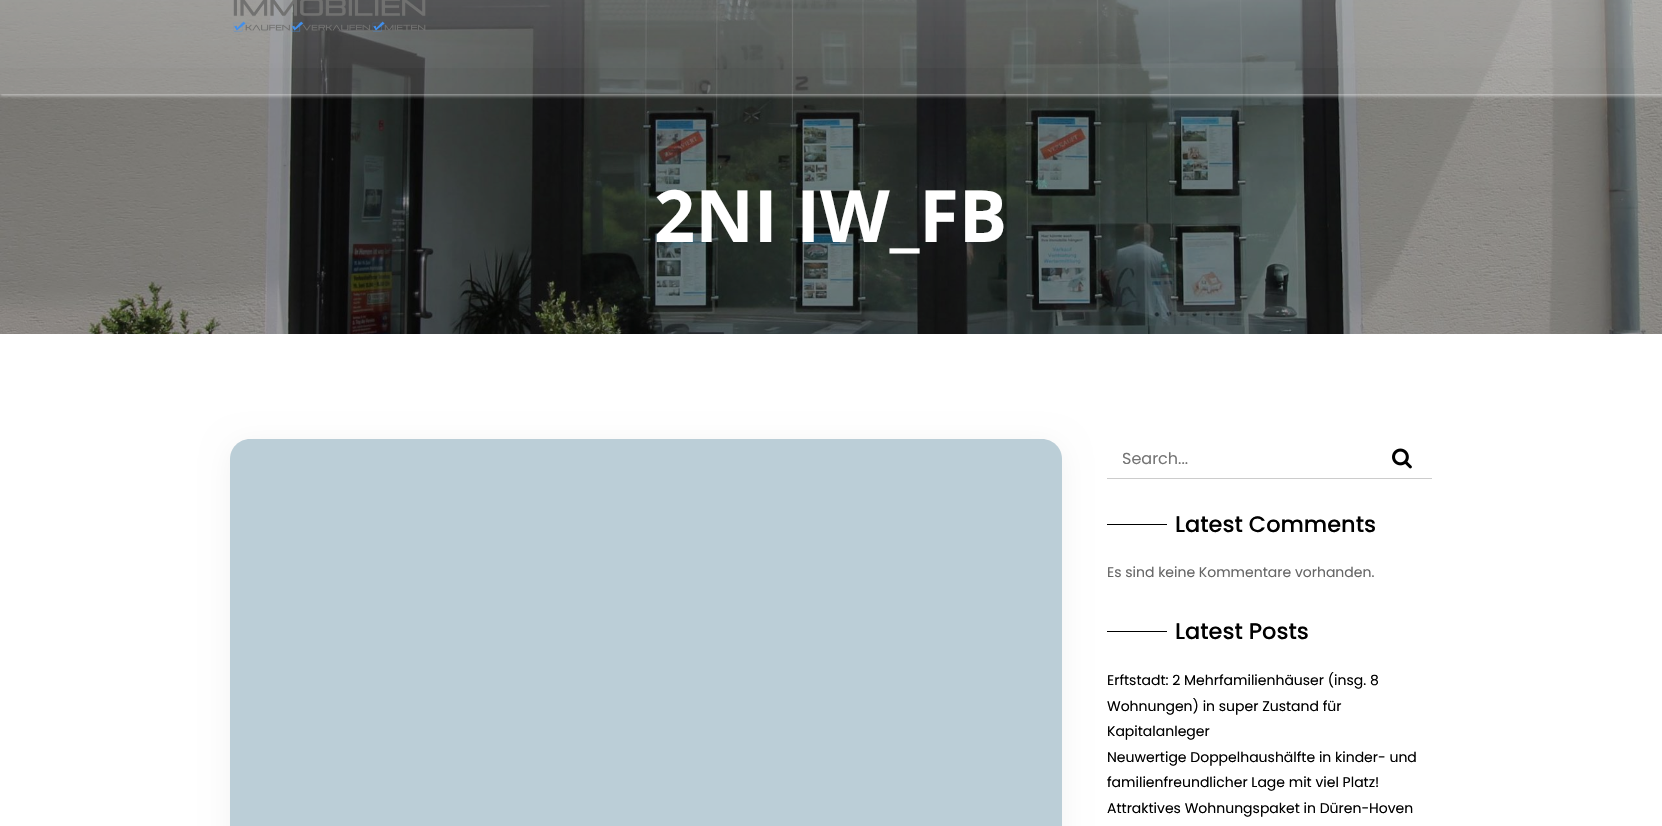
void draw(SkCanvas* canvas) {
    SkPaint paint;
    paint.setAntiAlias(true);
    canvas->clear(0xFFFFFFFF);
    canvas->drawImageRect(SkImages::DeferredFromEncodedData(SkData::MakeFromFileName("img2.png")), SkRect::MakeXYWH(0, 0, 1662, 334), SkSamplingOptions());
    canvas->save();
    canvas->clipRect(SkRect::MakeXYWH(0, 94, 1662, 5));
    paint.setColor(0x80FFFFFF);
    paint.setMaskFilter(SkMaskFilter::MakeBlur(kNormal_SkBlurStyle, 1.5f));
    canvas->drawRect(SkRect::MakeXYWH(0, -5, 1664, 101), paint);
    paint.setMaskFilter(nullptr);
    canvas->restore();
    paint.setColor(0x33FFFFFF);
    canvas->drawRect(SkRect::MakeXYWH(0, 0, 1662, 94), paint);
    {
        const SkColor colors[] = {0x26FFFFFF, 0x00FFFFFF};
        const float stops[] = {0, 1};
        const SkPoint ends[] = {{831, -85}, {831, 94}};
        paint.setShader(SkGradientShader::MakeLinear(ends, colors, stops, 2, SkTileMode::kClamp));
        paint.setAlpha(255);
    }
    canvas->drawRect(SkRect::MakeXYWH(0, 0, 1662, 68), paint);
    canvas->drawImageRect(SkImages::DeferredFromEncodedData(SkData::MakeFromFileName("img1.png")), SkRect::MakeXYWH(233, 0, 193, 32), SkSamplingOptions());
    SkFont font1(fontMgr->matchFamilyStyle("Open Sans", SkFontStyle::Bold()), 72);
    font1.setSubpixel(true);
    paint.setShader(nullptr);
    paint.setColor(0xFFFFFFFF);
    canvas->drawString("2NI IW_FB", 654, 242, font1, paint);
    paint.setColor(0x0D000000);
    paint.setMaskFilter(SkMaskFilter::MakeBlur(kNormal_SkBlurStyle, 14));
    canvas->drawRoundRect(SkRect::MakeXYWH(230, 444, 832, 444), 20, 20, paint);
    paint.setMaskFilter(nullptr);
    paint.setColor(0xFFBBCED7);
    canvas->drawPath(SkPathBuilder().moveTo(250, 439).lineTo(1042, 439).cubicTo(1053, 439, 1062, 448, 1062, 459).lineTo(1062, 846).lineTo(230, 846).lineTo(230, 459).cubicTo(230, 448, 239, 439, 250, 439).close().detach(), paint);
    paint.setColor(0xFFCCCCCC);
    canvas->drawRect(SkRect::MakeXYWH(1107, 478, 325, 1), paint);
    SkFont font2(fontMgr->matchFamilyStyle("Poppins", SkFontStyle::Normal()), 16);
    font2.setSubpixel(true);
    paint.setColor(0xFF757575);
    canvas->drawString("Search...", 1122, 464, font2, paint);
    canvas->drawImageRect(SkImages::DeferredFromEncodedData(SkData::MakeFromFileName("img3.png")), SkRect::MakeXYWH(1392, 448, 20, 21), SkSamplingOptions());
    paint.setColor(0xFF000000);
    canvas->drawRect(SkRect::MakeXYWH(1107, 524, 60, 1), paint);
    SkFont font3(fontMgr->matchFamilyStyle("Poppins", SkFontStyle(500, SkFontStyle::kNormal_Width, SkFontStyle::kUpright_Slant)), 22.5f);
    font3.setSubpixel(true);
    canvas->drawString("Latest Comments", 1175, 532, font3, paint);
    SkFont font4(fontMgr->matchFamilyStyle("Poppins", SkFontStyle::Normal()), 14);
    font4.setSubpixel(true);
    paint.setColor(0xFF666666);
    canvas->drawString("Es sind keine Kommentare vorhanden.", 1107, 577, font4, paint);
    paint.setColor(0xFF000000);
    canvas->drawRect(SkRect::MakeXYWH(1107, 631, 60, 1), paint);
    canvas->drawString("Latest Posts", 1175, 639, font3, paint);
    canvas->drawString("Erftstadt: 2 Mehrfamilienhäuser (insg. 8", 1107, 685, font4, paint);
    canvas->drawString("Wohnungen) in super Zustand für", 1107, 711, font4, paint);
    canvas->drawString("Kapitalanleger", 1107, 736, font4, paint);
    canvas->drawString("Neuwertige Doppelhaushälfte in kinder- und", 1107, 762, font4, paint);
    canvas->drawString("familienfreundlicher Lage mit viel Platz!", 1107, 787, font4, paint);
    canvas->drawString("Attraktives Wohnungspaket in Düren-Hoven", 1107, 813, font4, paint);
}
